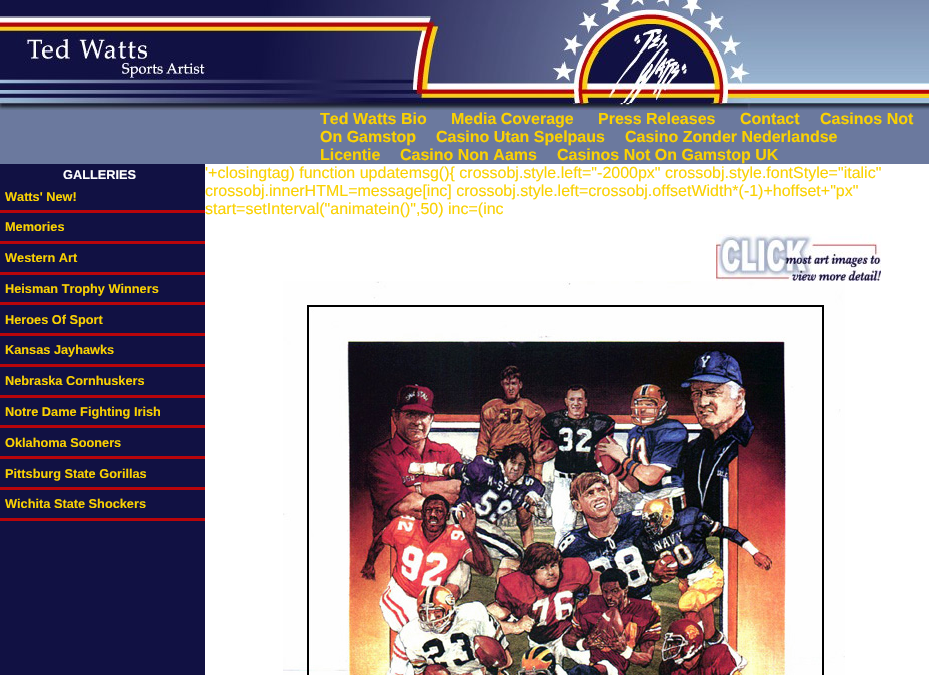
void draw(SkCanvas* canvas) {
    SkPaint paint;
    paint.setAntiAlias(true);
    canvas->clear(0xFFFFFFFF);
    paint.setColor(0xFF111143);
    canvas->drawRect(SkRect::MakeXYWH(0, 164, 205, 511), paint);
    canvas->drawImageRect(SkImages::DeferredFromEncodedData(SkData::MakeFromFileName("img1.png")), SkRect::MakeXYWH(751, 0, 178, 110), SkSamplingOptions());
    canvas->drawImageRect(SkImages::DeferredFromEncodedData(SkData::MakeFromFileName("img2.png")), SkRect::MakeXYWH(0, 0, 751, 110), SkSamplingOptions());
    paint.setColor(0xFF6B799E);
    canvas->drawRect(SkRect::MakeXYWH(0, 110, 929, 54), paint);
    SkFont font1(fontMgr->matchFamilyStyle("Liberation Sans", SkFontStyle::Bold()), 16);
    font1.setSubpixel(true);
    paint.setColor(0xFFFAD102);
    canvas->drawString("Ted Watts Bio", 320, 124, font1, paint);
    canvas->drawString("Media Coverage", 451, 124, font1, paint);
    canvas->drawString("Press Releases", 598, 124, font1, paint);
    canvas->drawString("Contact", 740, 124, font1, paint);
    canvas->drawString("Casinos Not", 820, 124, font1, paint);
    canvas->drawString("On Gamstop", 320, 142, font1, paint);
    canvas->drawString("Casino Utan Spelpaus", 436, 142, font1, paint);
    canvas->drawString("Casino Zonder Nederlandse", 625, 142, font1, paint);
    canvas->drawString("Licentie", 320, 160, font1, paint);
    canvas->drawString("Casino Non Aams", 400, 160, font1, paint);
    canvas->drawString("Casinos Not On Gamstop UK", 557, 160, font1, paint);
    SkFont font2(fontMgr->matchFamilyStyle("Liberation Sans", SkFontStyle::Bold()), 12.75f);
    font2.setSubpixel(true);
    paint.setColor(0xFFFFFFFF);
    canvas->drawString("GALLERIES", 63, 179, font2, paint);
    paint.setColor(0xFFB9050A);
    canvas->drawRect(SkRect::MakeXYWH(0, 210, 205, 3), paint);
    paint.setColor(0xFFFAD102);
    canvas->drawString("Watts' New!", 5, 201, font2, paint);
    paint.setColor(0xFFB9050A);
    canvas->drawRect(SkRect::MakeXYWH(0, 241, 205, 3), paint);
    paint.setColor(0xFFFAD102);
    canvas->drawString("Memories", 5, 231, font2, paint);
    paint.setColor(0xFFB9050A);
    canvas->drawRect(SkRect::MakeXYWH(0, 272, 205, 3), paint);
    paint.setColor(0xFFFAD102);
    canvas->drawString("Western Art", 5, 262, font2, paint);
    paint.setColor(0xFFB9050A);
    canvas->drawRect(SkRect::MakeXYWH(0, 302, 205, 3), paint);
    paint.setColor(0xFFFAD102);
    canvas->drawString("Heisman Trophy Winners", 5, 293, font2, paint);
    paint.setColor(0xFFB9050A);
    canvas->drawRect(SkRect::MakeXYWH(0, 333, 205, 3), paint);
    paint.setColor(0xFFFAD102);
    canvas->drawString("Heroes Of Sport", 5, 324, font2, paint);
    paint.setColor(0xFFB9050A);
    canvas->drawRect(SkRect::MakeXYWH(0, 364, 205, 3), paint);
    paint.setColor(0xFFFAD102);
    canvas->drawString("Kansas Jayhawks", 5, 354, font2, paint);
    paint.setColor(0xFFB9050A);
    canvas->drawRect(SkRect::MakeXYWH(0, 395, 205, 3), paint);
    paint.setColor(0xFFFAD102);
    canvas->drawString("Nebraska Cornhuskers", 5, 385, font2, paint);
    paint.setColor(0xFFB9050A);
    canvas->drawRect(SkRect::MakeXYWH(0, 425, 205, 3), paint);
    paint.setColor(0xFFFAD102);
    canvas->drawString("Notre Dame Fighting Irish", 5, 416, font2, paint);
    paint.setColor(0xFFB9050A);
    canvas->drawRect(SkRect::MakeXYWH(0, 456, 205, 3), paint);
    paint.setColor(0xFFFAD102);
    canvas->drawString("Oklahoma Sooners", 5, 447, font2, paint);
    paint.setColor(0xFFB9050A);
    canvas->drawRect(SkRect::MakeXYWH(0, 487, 205, 3), paint);
    paint.setColor(0xFFFAD102);
    canvas->drawString("Pittsburg State Gorillas", 5, 478, font2, paint);
    paint.setColor(0xFFB9050A);
    canvas->drawRect(SkRect::MakeXYWH(0, 518, 205, 3), paint);
    paint.setColor(0xFFFAD102);
    canvas->drawString("Wichita State Shockers", 5, 508, font2, paint);
    SkFont font3(fontMgr->matchFamilyStyle("Liberation Sans", SkFontStyle::Normal()), 16);
    font3.setSubpixel(true);
    canvas->drawString("'+closingtag) function updatemsg(){ crossobj.style.left=\"-2000px\" crossobj.style.fontStyle=\"italic\"", 205, 178, font3, paint);
    canvas->drawString("crossobj.innerHTML=message[inc] crossobj.style.left=crossobj.offsetWidth*(-1)+hoffset+\"px\"", 205, 196, font3, paint);
    canvas->drawString("start=setInterval(\"animatein()\",50) inc=(inc", 205, 214, font3, paint);
    canvas->drawImageRect(SkImages::DeferredFromEncodedData(SkData::MakeFromFileName("img3.png")), SkRect::MakeXYWH(716, 234, 165, 47), SkSamplingOptions());
    canvas->drawImageRect(SkImages::DeferredFromEncodedData(SkData::MakeFromFileName("img4.png")), SkRect::MakeXYWH(283, 281, 562, 394), SkSamplingOptions());
}
